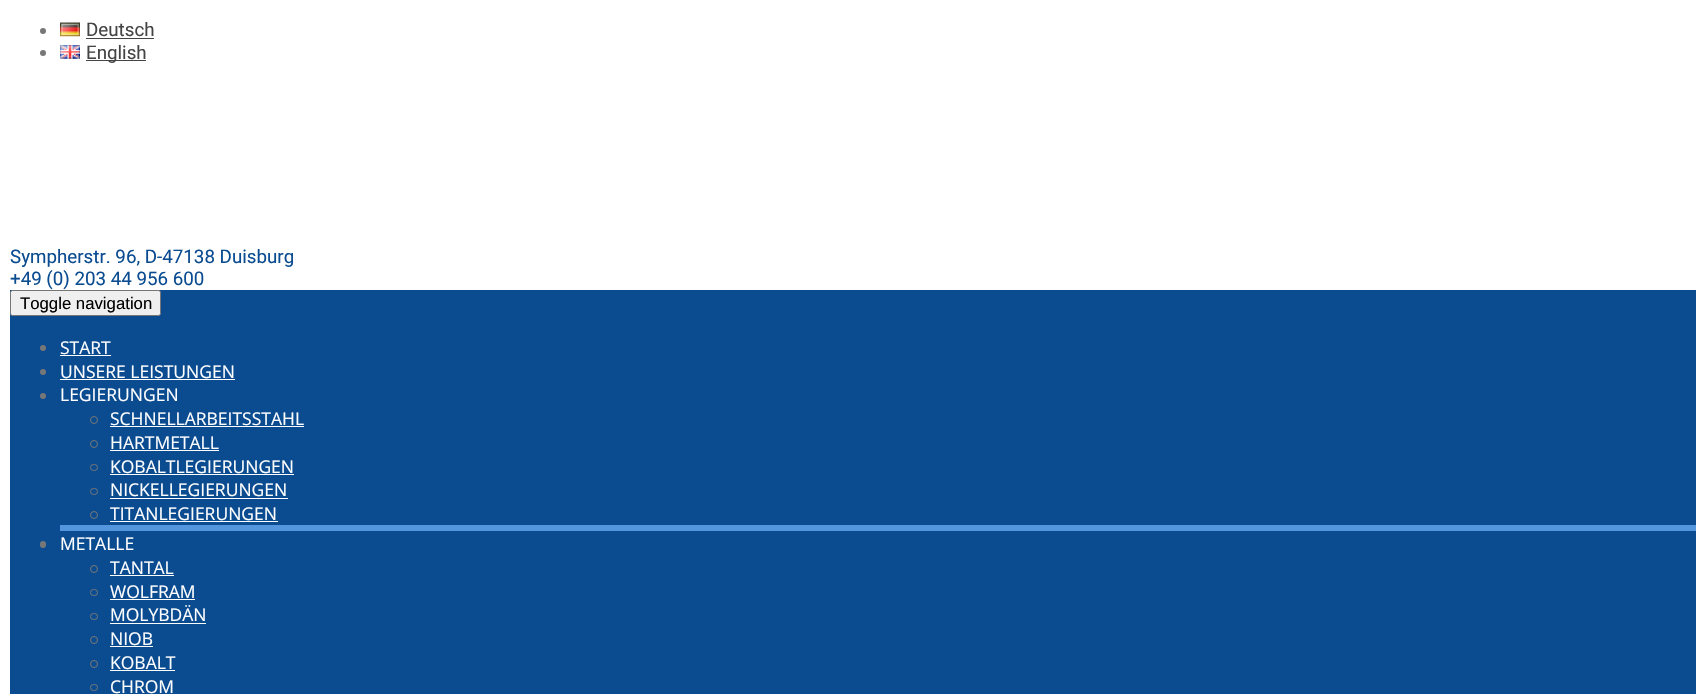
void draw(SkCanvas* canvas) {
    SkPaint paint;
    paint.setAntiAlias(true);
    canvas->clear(0xFFFFFFFF);
    paint.setColor(0xFF777777);
    canvas->drawCircle(43, 31, 3, paint);
    canvas->drawImageRect(SkImages::DeferredFromEncodedData(SkData::MakeFromFileName("img1.png")), SkRect::MakeXYWH(60, 22, 20, 15), SkSamplingOptions());
    SkFont font1(fontMgr->matchFamilyStyle("Roboto", SkFontStyle::Normal()), 18.75f);
    font1.setSubpixel(true);
    paint.setColor(0xFF444444);
    canvas->drawString("Deutsch", 86, 36, font1, paint);
    canvas->drawRect(SkRect::MakeXYWH(86, 38, 68, 1), paint);
    paint.setColor(0xFF777777);
    canvas->drawCircle(43, 53, 3, paint);
    canvas->drawImageRect(SkImages::DeferredFromEncodedData(SkData::MakeFromFileName("img2.png")), SkRect::MakeXYWH(60, 45, 20, 14), SkSamplingOptions());
    paint.setColor(0xFF444444);
    canvas->drawRect(SkRect::MakeXYWH(86, 60, 60, 1), paint);
    canvas->drawString("English", 86, 59, font1, paint);
    paint.setColor(0xFF0B4C91);
    canvas->drawString("Sympherstr. 96, D-47138 Duisburg", 10, 263, font1, paint);
    canvas->drawString("+49 (0) 203 44 956 600", 10, 285, font1, paint);
    canvas->drawRect(SkRect::MakeXYWH(10, 290, 1686, 404), paint);
    paint.setColor(0xFFEFEFEF);
    canvas->drawRoundRect(SkRect::MakeXYWH(10.5f, 290.5f, 150, 25), 2, 2, paint);
    paint.setStyle(SkPaint::kStroke_Style);
    paint.setStrokeWidth(1);
    paint.setColor(0xFF767676);
    canvas->drawRoundRect(SkRect::MakeXYWH(10.5f, 290.5f, 150, 25), 2, 2, paint);
    SkFont font2(fontMgr->matchFamilyStyle("Liberation Sans", SkFontStyle::Normal()), 16.75f);
    font2.setSubpixel(true);
    paint.setStyle(SkPaint::kFill_Style);
    paint.setColor(0xFF000000);
    canvas->drawString("Toggle navigation", 20, 309, font2, paint);
    paint.setColor(0xFF777777);
    canvas->drawCircle(43, 348, 3, paint);
    SkFont font3(fontMgr->matchFamilyStyle("Open Sans", SkFontStyle::Normal()), 17.5f);
    font3.setSubpixel(true);
    paint.setColor(0xFFFFFFFF);
    canvas->drawString("START", 60, 354, font3, paint);
    canvas->drawRect(SkRect::MakeXYWH(60, 355, 51, 1), paint);
    paint.setColor(0xFF777777);
    canvas->drawCircle(43, 372, 3, paint);
    paint.setColor(0xFFFFFFFF);
    canvas->drawString("UNSERE LEISTUNGEN", 60, 378, font3, paint);
    canvas->drawRect(SkRect::MakeXYWH(60, 379, 175, 1), paint);
    paint.setColor(0xFF777777);
    canvas->drawCircle(43, 396, 3, paint);
    paint.setColor(0xFFFFFFFF);
    canvas->drawString("LEGIERUNGEN", 60, 401, font3, paint);
    paint.setColor(0xFF5396DD);
    canvas->drawRect(SkRect::MakeXYWH(60, 525, 1636, 6), paint);
    paint.setStyle(SkPaint::kStroke_Style);
    paint.setColor(0xFF777777);
    canvas->drawCircle(94, 420, 3.5f, paint);
    paint.setStyle(SkPaint::kFill_Style);
    paint.setColor(0xFFFFFFFF);
    canvas->drawString("SCHNELLARBEITSSTAHL", 110, 425, font3, paint);
    canvas->drawRect(SkRect::MakeXYWH(110, 426, 194, 1), paint);
    paint.setStyle(SkPaint::kStroke_Style);
    paint.setColor(0xFF777777);
    canvas->drawCircle(94, 444, 3.5f, paint);
    paint.setStyle(SkPaint::kFill_Style);
    paint.setColor(0xFFFFFFFF);
    canvas->drawString("HARTMETALL", 110, 449, font3, paint);
    canvas->drawRect(SkRect::MakeXYWH(110, 450, 109, 1), paint);
    paint.setStyle(SkPaint::kStroke_Style);
    paint.setColor(0xFF777777);
    canvas->drawRoundRect(SkRect::MakeXYWH(90.5f, 464.5f, 7, 6), 3, 3, paint);
    paint.setStyle(SkPaint::kFill_Style);
    paint.setColor(0xFFFFFFFF);
    canvas->drawString("KOBALTLEGIERUNGEN", 110, 473, font3, paint);
    canvas->drawRect(SkRect::MakeXYWH(110, 474, 184, 1), paint);
    paint.setStyle(SkPaint::kStroke_Style);
    paint.setColor(0xFF777777);
    canvas->drawRoundRect(SkRect::MakeXYWH(90.5f, 488.5f, 7, 6), 3, 3, paint);
    paint.setStyle(SkPaint::kFill_Style);
    paint.setColor(0xFFFFFFFF);
    canvas->drawString("NICKELLEGIERUNGEN", 110, 496, font3, paint);
    canvas->drawRect(SkRect::MakeXYWH(110, 498, 178, 1), paint);
    paint.setStyle(SkPaint::kStroke_Style);
    paint.setColor(0xFF777777);
    canvas->drawCircle(94, 515, 3.5f, paint);
    paint.setStyle(SkPaint::kFill_Style);
    paint.setColor(0xFFFFFFFF);
    canvas->drawString("TITANLEGIERUNGEN", 110, 520, font3, paint);
    canvas->drawRect(SkRect::MakeXYWH(110, 521, 168, 1), paint);
    paint.setColor(0xFF777777);
    canvas->drawRoundRect(SkRect::MakeXYWH(40, 541, 6, 7), 3, 3, paint);
    paint.setColor(0xFFFFFFFF);
    canvas->drawString("METALLE", 60, 550, font3, paint);
    paint.setStyle(SkPaint::kStroke_Style);
    paint.setColor(0xFF777777);
    canvas->drawCircle(94, 569, 3.5f, paint);
    paint.setStyle(SkPaint::kFill_Style);
    paint.setColor(0xFFFFFFFF);
    canvas->drawString("TANTAL", 110, 574, font3, paint);
    canvas->drawRect(SkRect::MakeXYWH(110, 575, 64, 1), paint);
    paint.setStyle(SkPaint::kStroke_Style);
    paint.setColor(0xFF777777);
    canvas->drawRoundRect(SkRect::MakeXYWH(90.5f, 589.5f, 7, 6), 3, 3, paint);
    paint.setStyle(SkPaint::kFill_Style);
    paint.setColor(0xFFFFFFFF);
    canvas->drawString("WOLFRAM", 110, 598, font3, paint);
    canvas->drawRect(SkRect::MakeXYWH(110, 599, 85, 1), paint);
    paint.setStyle(SkPaint::kStroke_Style);
    paint.setColor(0xFF777777);
    canvas->drawRoundRect(SkRect::MakeXYWH(90.5f, 613.5f, 7, 6), 3, 3, paint);
    paint.setStyle(SkPaint::kFill_Style);
    paint.setColor(0xFFFFFFFF);
    canvas->drawString("MOLYBDÄN", 110, 621, font3, paint);
    canvas->drawRect(SkRect::MakeXYWH(110, 623, 96, 1), paint);
    paint.setStyle(SkPaint::kStroke_Style);
    paint.setColor(0xFF777777);
    canvas->drawCircle(94, 640, 3.5f, paint);
    paint.setStyle(SkPaint::kFill_Style);
    paint.setColor(0xFFFFFFFF);
    canvas->drawString("NIOB", 110, 645, font3, paint);
    canvas->drawRect(SkRect::MakeXYWH(110, 646, 43, 1), paint);
    paint.setStyle(SkPaint::kStroke_Style);
    paint.setColor(0xFF777777);
    canvas->drawCircle(94, 664, 3.5f, paint);
    paint.setStyle(SkPaint::kFill_Style);
    paint.setColor(0xFFFFFFFF);
    canvas->drawString("KOBALT", 110, 669, font3, paint);
    canvas->drawRect(SkRect::MakeXYWH(110, 670, 65, 1), paint);
    paint.setStyle(SkPaint::kStroke_Style);
    paint.setColor(0xFF777777);
    canvas->drawRoundRect(SkRect::MakeXYWH(90.5f, 684.5f, 7, 6), 3, 3, paint);
    paint.setStyle(SkPaint::kFill_Style);
    paint.setColor(0xFFFFFFFF);
    canvas->drawString("CHROM", 110, 693, font3, paint);
}
